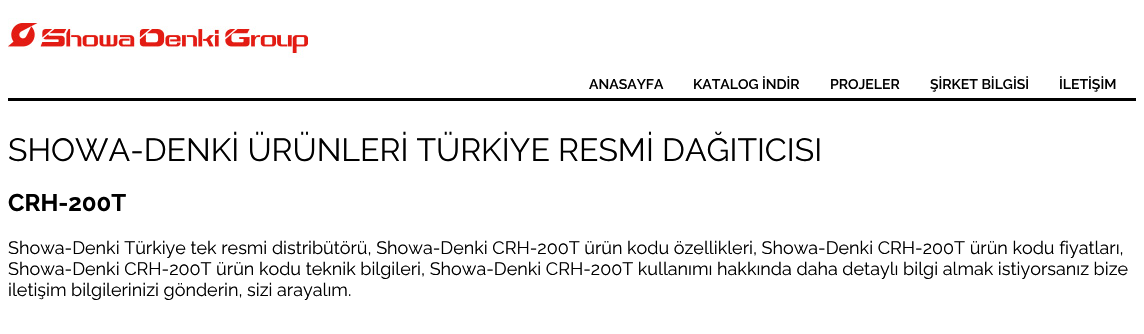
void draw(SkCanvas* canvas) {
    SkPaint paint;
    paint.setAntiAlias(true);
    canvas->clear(0xFFFFFFFF);
    paint.setColor(0xFF000000);
    canvas->drawRect(SkRect::MakeXYWH(8, 98, 1128, 3), paint);
    canvas->drawImageRect(SkImages::DeferredFromEncodedData(SkData::MakeFromFileName("img1.png")), SkRect::MakeXYWH(8, 18, 300, 40), SkSamplingOptions());
    SkFont font1(fontMgr->matchFamilyStyle("Raleway", SkFontStyle(600, SkFontStyle::kNormal_Width, SkFontStyle::kUpright_Slant)), 14);
    font1.setSubpixel(true);
    canvas->drawString("ANASAYFA", 589, 89, font1, paint);
    canvas->drawString("KATALOG İNDİR", 693, 89, font1, paint);
    canvas->drawString("PROJELER", 830, 89, font1, paint);
    canvas->drawString("ŞİRKET BİLGİSİ", 930, 89, font1, paint);
    canvas->drawString("İLETİŞİM", 1059, 89, font1, paint);
    SkFont font2(fontMgr->matchFamilyStyle("Raleway", SkFontStyle::Normal()), 32);
    font2.setSubpixel(true);
    canvas->drawString("SHOWA-DENKİ ÜRÜNLERİ TÜRKİYE RESMİ DAĞITICISI", 8, 161, font2, paint);
    SkFont font3(fontMgr->matchFamilyStyle("Raleway", SkFontStyle::Bold()), 24);
    font3.setSubpixel(true);
    canvas->drawString("CRH-200T", 8, 211, font3, paint);
    SkFont font4(fontMgr->matchFamilyStyle("Raleway", SkFontStyle::Normal()), 18);
    font4.setSubpixel(true);
    canvas->drawString("Showa-Denki Türkiye tek resmi distribütörü, Showa-Denki CRH-200T ürün kodu özellikleri, Showa-Denki CRH-200T ürün kodu fiyatları,", 8, 254, font4, paint);
    canvas->drawString("Showa-Denki CRH-200T ürün kodu teknik bilgileri, Showa-Denki CRH-200T kullanımı hakkında daha detaylı bilgi almak istiyorsanız bize", 8, 275, font4, paint);
    canvas->drawString("iletişim bilgilerinizi gönderin, sizi arayalım.", 8, 296, font4, paint);
}
